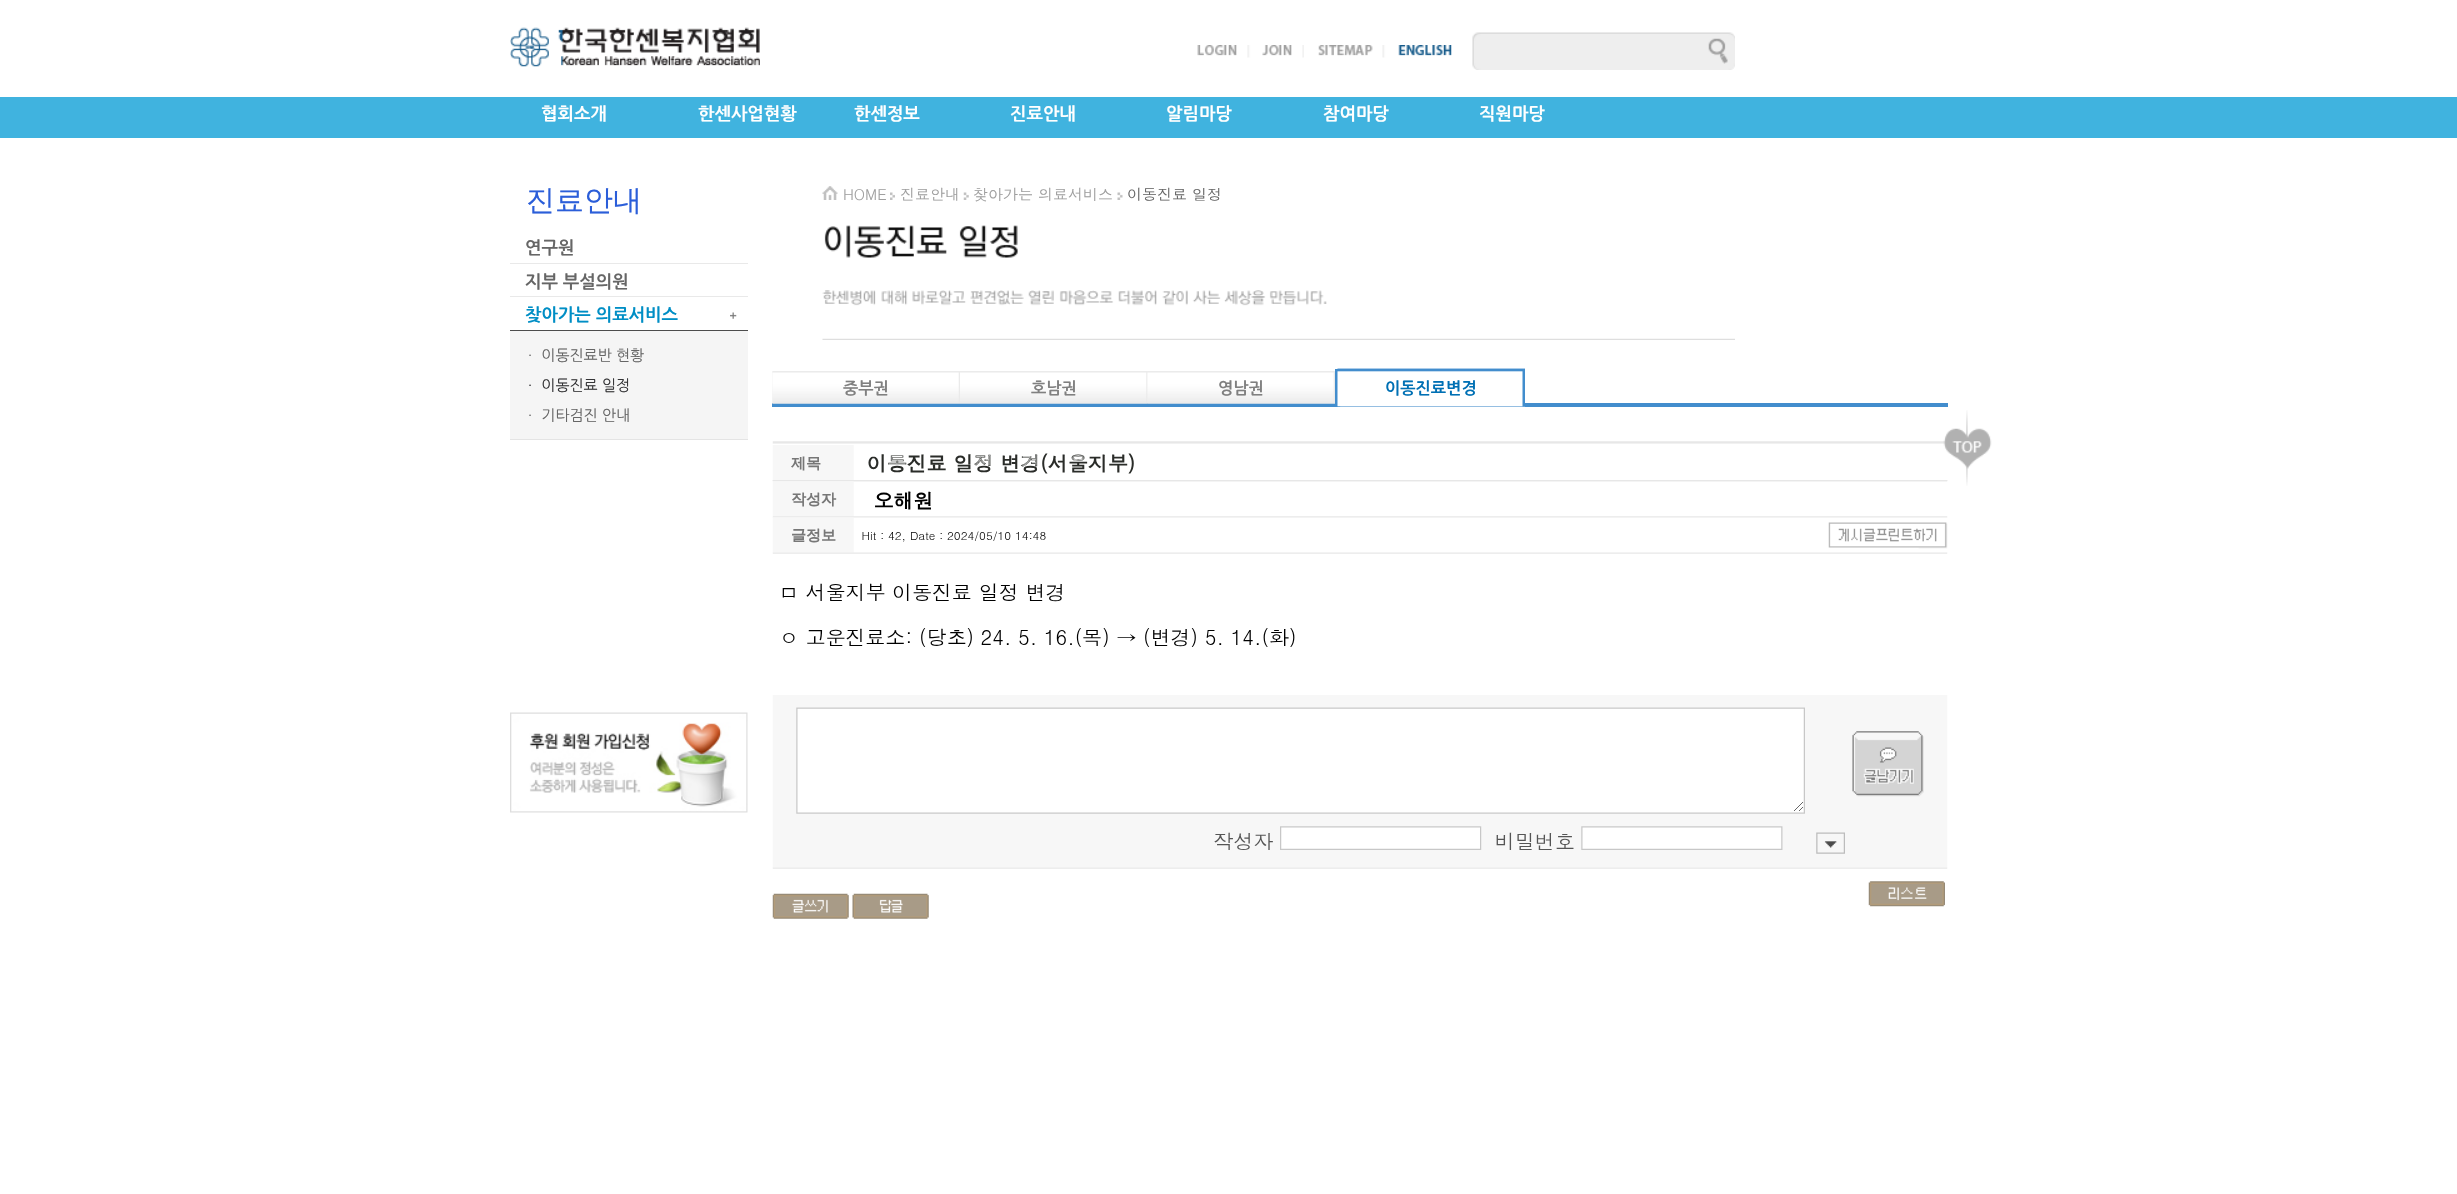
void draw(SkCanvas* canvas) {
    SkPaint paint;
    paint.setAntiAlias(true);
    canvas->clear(0xFFFFFFFF);
    paint.setColor(0xFF40B3DF);
    canvas->drawRect(SkRect::MakeXYWH(0, 97, 2457, 41), paint);
    canvas->drawImageRect(SkImages::DeferredFromEncodedData(SkData::MakeFromFileName("img1.png")), SkRect::MakeXYWH(510, 27, 250, 40), SkSamplingOptions());
    canvas->drawImageRect(SkImages::DeferredFromEncodedData(SkData::MakeFromFileName("img2.png")), SkRect::MakeXYWH(1197, 45, 52, 13), SkSamplingOptions());
    canvas->drawImageRect(SkImages::DeferredFromEncodedData(SkData::MakeFromFileName("img3.png")), SkRect::MakeXYWH(1249, 45, 55, 13), SkSamplingOptions());
    canvas->drawImageRect(SkImages::DeferredFromEncodedData(SkData::MakeFromFileName("img4.png")), SkRect::MakeXYWH(1318, 45, 55, 11), SkSamplingOptions());
    canvas->drawImageRect(SkImages::DeferredFromEncodedData(SkData::MakeFromFileName("img5.png")), SkRect::MakeXYWH(1382, 45, 70, 13), SkSamplingOptions());
    canvas->drawImageRect(SkImages::DeferredFromEncodedData(SkData::MakeFromFileName("img6.png")), SkRect::MakeXYWH(1472, 32, 263, 38), SkSamplingOptions());
    canvas->drawImageRect(SkImages::DeferredFromEncodedData(SkData::MakeFromFileName("img7.png")), SkRect::MakeXYWH(1708, 38, 20, 26), SkSamplingOptions());
    SkFont font1(fontMgr->matchFamilyStyle("NanumGothic", SkFontStyle::Bold()), 17.5f);
    font1.setSubpixel(true);
    paint.setColor(0xFFFFFFFF);
    canvas->drawString("협회소개", 541, 120, font1, paint);
    canvas->drawString("한센사업현황", 698, 120, font1, paint);
    canvas->drawString("한센정보", 854, 120, font1, paint);
    canvas->drawString("진료안내", 1010, 120, font1, paint);
    canvas->drawString("알림마당", 1166, 120, font1, paint);
    canvas->drawString("참여마당", 1323, 120, font1, paint);
    canvas->drawString("직원마당", 1479, 120, font1, paint);
    SkFont font2(fontMgr->matchFamilyStyle("WenQuanYi Zen Hei", SkFontStyle(500, SkFontStyle::kNormal_Width, SkFontStyle::kUpright_Slant)), 29);
    font2.setSubpixel(true);
    paint.setColor(0xFF2B5ED9);
    canvas->drawString("진료안내", 526, 210, font2, paint);
    canvas->drawImageRect(SkImages::DeferredFromEncodedData(SkData::MakeFromFileName("img8.png")), SkRect::MakeXYWH(822, 186, 16, 14), SkSamplingOptions());
    SkFont font3(fontMgr->matchFamilyStyle("Dotum", SkFontStyle::Normal()), 15);
    font3.setSubpixel(true);
    paint.setColor(0xFF9F9F9F);
    canvas->drawString("HOME", 843, 200, font3, paint);
    canvas->drawImageRect(SkImages::DeferredFromEncodedData(SkData::MakeFromFileName("img9.png")), SkRect::MakeXYWH(890, 192, 5, 8), SkSamplingOptions());
    canvas->drawString("진료안내", 900, 200, font3, paint);
    canvas->drawImageRect(SkImages::DeferredFromEncodedData(SkData::MakeFromFileName("img10.png")), SkRect::MakeXYWH(963, 192, 6, 8), SkSamplingOptions());
    canvas->drawString("찾아가는 의료서비스", 973, 200, font3, paint);
    canvas->drawImageRect(SkImages::DeferredFromEncodedData(SkData::MakeFromFileName("img11.png")), SkRect::MakeXYWH(1117, 192, 6, 8), SkSamplingOptions());
    paint.setColor(0xFF666666);
    canvas->drawString("이동진료 일정", 1127, 200, font3, paint);
    paint.setColor(0xFFE9E9E9);
    canvas->drawRect(SkRect::MakeXYWH(510, 263, 238, 1), paint);
    paint.setColor(0xFF666666);
    canvas->drawString("연구원", 525, 254, font1, paint);
    paint.setColor(0xFFE9E9E9);
    canvas->drawRect(SkRect::MakeXYWH(510, 296, 238, 1), paint);
    paint.setColor(0xFF666666);
    canvas->drawString("지부 부설의원", 525, 288, font1, paint);
    canvas->drawImageRect(SkImages::DeferredFromEncodedData(SkData::MakeFromFileName("img12.png")), SkRect::MakeXYWH(730, 312, 7, 7), SkSamplingOptions());
    paint.setColor(0xFF4D4D4D);
    canvas->drawRect(SkRect::MakeXYWH(510, 330, 238, 1), paint);
    paint.setColor(0xFF008EC5);
    canvas->drawString("찾아가는 의료서비스", 525, 321, font1, paint);
    paint.setColor(0xFFF5F5F5);
    canvas->drawRect(SkRect::MakeXYWH(510, 331, 238, 108), paint);
    paint.setColor(0xFFE4E4E4);
    canvas->drawRect(SkRect::MakeXYWH(510, 439, 238, 1), paint);
    SkFont font4(fontMgr->matchFamilyStyle("NanumGothic", SkFontStyle::Normal()), 15);
    font4.setSubpixel(true);
    paint.setColor(0xFF666666);
    canvas->drawString("ㆍ 이동진료반 현황", 523, 360, font4, paint);
    paint.setColor(0xFF343436);
    canvas->drawString("ㆍ 이동진료 일정", 523, 390, font4, paint);
    paint.setColor(0xFF666666);
    canvas->drawString("ㆍ 기타검진 안내", 523, 420, font4, paint);
    canvas->drawImageRect(SkImages::DeferredFromEncodedData(SkData::MakeFromFileName("img13.png")), SkRect::MakeXYWH(824, 225, 194, 33), SkSamplingOptions());
    canvas->drawImageRect(SkImages::DeferredFromEncodedData(SkData::MakeFromFileName("img14.png")), SkRect::MakeXYWH(822, 290, 505, 16), SkSamplingOptions());
    canvas->drawImageRect(SkImages::DeferredFromEncodedData(SkData::MakeFromFileName("img15.png")), SkRect::MakeXYWH(822, 338, 913, 2), SkSamplingOptions());
    paint.setColor(0xFF428DCD);
    canvas->drawRect(SkRect::MakeXYWH(772, 403, 1176, 4), paint);
    canvas->drawImageRect(SkImages::DeferredFromEncodedData(SkData::MakeFromFileName("img16.png")), SkRect::MakeXYWH(772, 371, 188, 33), SkSamplingOptions());
    canvas->drawImageRect(SkImages::DeferredFromEncodedData(SkData::MakeFromFileName("img17.png")), SkRect::MakeXYWH(772, 371, 188, 33), SkSamplingOptions());
    SkFont font5(fontMgr->matchFamilyStyle("NanumGothic", SkFontStyle::Bold()), 16.25f);
    font5.setSubpixel(true);
    paint.setColor(0xFF808080);
    canvas->drawString("중부권", 843, 394, font5, paint);
    canvas->drawImageRect(SkImages::DeferredFromEncodedData(SkData::MakeFromFileName("img18.png")), SkRect::MakeXYWH(960, 371, 188, 33), SkSamplingOptions());
    canvas->drawImageRect(SkImages::DeferredFromEncodedData(SkData::MakeFromFileName("img19.png")), SkRect::MakeXYWH(960, 371, 188, 33), SkSamplingOptions());
    canvas->drawString("호남권", 1031, 394, font5, paint);
    canvas->drawImageRect(SkImages::DeferredFromEncodedData(SkData::MakeFromFileName("img20.png")), SkRect::MakeXYWH(1147, 371, 188, 33), SkSamplingOptions());
    canvas->drawImageRect(SkImages::DeferredFromEncodedData(SkData::MakeFromFileName("img21.png")), SkRect::MakeXYWH(1147, 371, 188, 33), SkSamplingOptions());
    canvas->drawString("영남권", 1218, 394, font5, paint);
    canvas->drawImageRect(SkImages::DeferredFromEncodedData(SkData::MakeFromFileName("img22.png")), SkRect::MakeXYWH(1337, 368, 188, 39), SkSamplingOptions());
    paint.setColor(0xFF428DCD);
    canvas->drawRect(SkRect::MakeXYWH(1335, 369, 3, 37), paint);
    canvas->drawImageRect(SkImages::DeferredFromEncodedData(SkData::MakeFromFileName("img23.png")), SkRect::MakeXYWH(1337, 368, 188, 39), SkSamplingOptions());
    paint.setColor(0xFF0070B4);
    canvas->drawString("이동진료변경", 1385, 394, font5, paint);
    canvas->drawImageRect(SkImages::DeferredFromEncodedData(SkData::MakeFromFileName("img24.png")), SkRect::MakeXYWH(772, 441, 1176, 478), SkSamplingOptions());
    canvas->drawImageRect(SkImages::DeferredFromEncodedData(SkData::MakeFromFileName("img25.png")), SkRect::MakeXYWH(1943, 410, 49, 76), SkSamplingOptions());
    canvas->drawImageRect(SkImages::DeferredFromEncodedData(SkData::MakeFromFileName("img26.png")), SkRect::MakeXYWH(510, 712, 238, 101), SkSamplingOptions());
}
